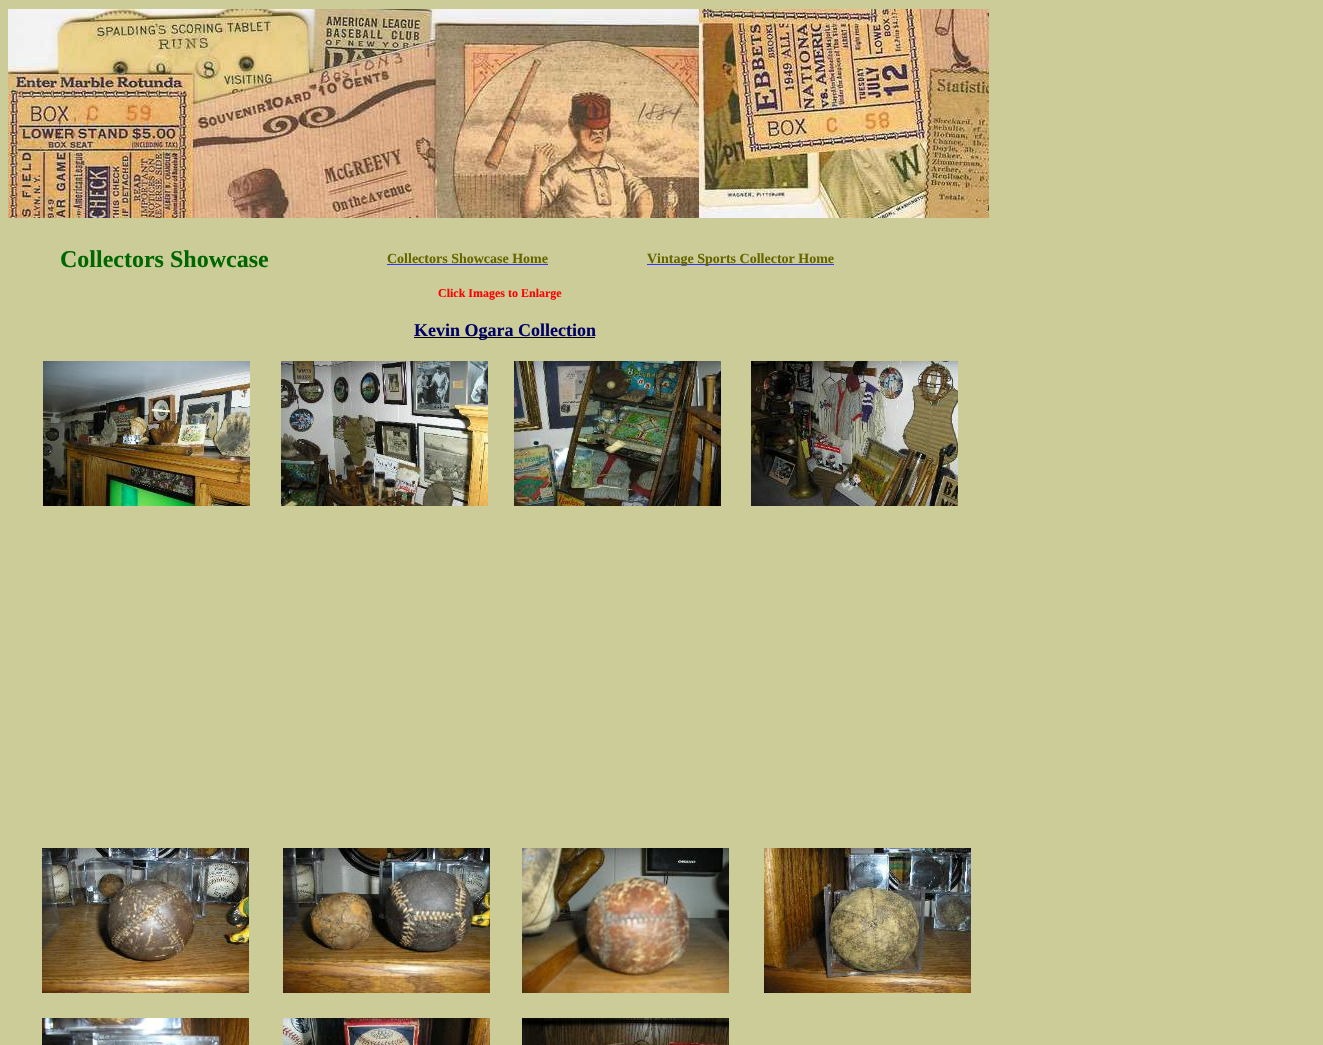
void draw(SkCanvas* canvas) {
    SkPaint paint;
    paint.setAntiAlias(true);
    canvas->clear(0xFFCCCC99);
    canvas->drawImageRect(SkImages::DeferredFromEncodedData(SkData::MakeFromFileName("img1.png")), SkRect::MakeXYWH(8, 9, 981, 209), SkSamplingOptions());
    SkFont font1(fontMgr->matchFamilyStyle("Liberation Serif", SkFontStyle::Bold()), 24);
    font1.setSubpixel(true);
    paint.setColor(0xFF006600);
    canvas->drawString("Collectors Showcase", 60, 267, font1, paint);
    SkFont font2(fontMgr->matchFamilyStyle("Liberation Serif", SkFontStyle::Bold()), 14);
    font2.setSubpixel(true);
    paint.setColor(0xFF666600);
    canvas->drawString("Collectors Showcase Home", 387, 263, font2, paint);
    paint.setColor(0xFF3333FF);
    canvas->drawRect(SkRect::MakeXYWH(387, 264, 161, 1), paint);
    canvas->drawRect(SkRect::MakeXYWH(647, 264, 187, 1), paint);
    paint.setColor(0xFF666600);
    canvas->drawString("Vintage Sports Collector Home", 647, 263, font2, paint);
    SkFont font3(fontMgr->matchFamilyStyle("Liberation Serif", SkFontStyle::Bold()), 12);
    font3.setSubpixel(true);
    paint.setColor(0xFFFF0000);
    canvas->drawString("Click Images to Enlarge", 438, 297, font3, paint);
    paint.setColor(0xFF000000);
    canvas->drawRect(SkRect::MakeXYWH(414, 337, 181, 1), paint);
    SkFont font4(fontMgr->matchFamilyStyle("Liberation Serif", SkFontStyle::Bold()), 18);
    font4.setSubpixel(true);
    paint.setColor(0xFF000066);
    canvas->drawString("Kevin Ogara Collection", 414, 336, font4, paint);
    canvas->drawImageRect(SkImages::DeferredFromEncodedData(SkData::MakeFromFileName("img2.png")), SkRect::MakeXYWH(43, 361, 207, 145), SkSamplingOptions());
    canvas->drawImageRect(SkImages::DeferredFromEncodedData(SkData::MakeFromFileName("img3.png")), SkRect::MakeXYWH(281, 361, 207, 145), SkSamplingOptions());
    canvas->drawImageRect(SkImages::DeferredFromEncodedData(SkData::MakeFromFileName("img4.png")), SkRect::MakeXYWH(514, 361, 207, 145), SkSamplingOptions());
    canvas->drawImageRect(SkImages::DeferredFromEncodedData(SkData::MakeFromFileName("img5.png")), SkRect::MakeXYWH(751, 361, 207, 145), SkSamplingOptions());
    canvas->drawImageRect(SkImages::DeferredFromEncodedData(SkData::MakeFromFileName("img6.png")), SkRect::MakeXYWH(42, 848, 207, 145), SkSamplingOptions());
    canvas->drawImageRect(SkImages::DeferredFromEncodedData(SkData::MakeFromFileName("img7.png")), SkRect::MakeXYWH(283, 848, 207, 145), SkSamplingOptions());
    canvas->drawImageRect(SkImages::DeferredFromEncodedData(SkData::MakeFromFileName("img8.png")), SkRect::MakeXYWH(522, 848, 207, 145), SkSamplingOptions());
    canvas->drawImageRect(SkImages::DeferredFromEncodedData(SkData::MakeFromFileName("img9.png")), SkRect::MakeXYWH(764, 848, 207, 145), SkSamplingOptions());
    canvas->drawImageRect(SkImages::DeferredFromEncodedData(SkData::MakeFromFileName("img10.png")), SkRect::MakeXYWH(42, 1018, 207, 27), SkSamplingOptions());
    canvas->drawImageRect(SkImages::DeferredFromEncodedData(SkData::MakeFromFileName("img11.png")), SkRect::MakeXYWH(283, 1018, 207, 27), SkSamplingOptions());
    canvas->drawImageRect(SkImages::DeferredFromEncodedData(SkData::MakeFromFileName("img12.png")), SkRect::MakeXYWH(522, 1018, 207, 27), SkSamplingOptions());
}
